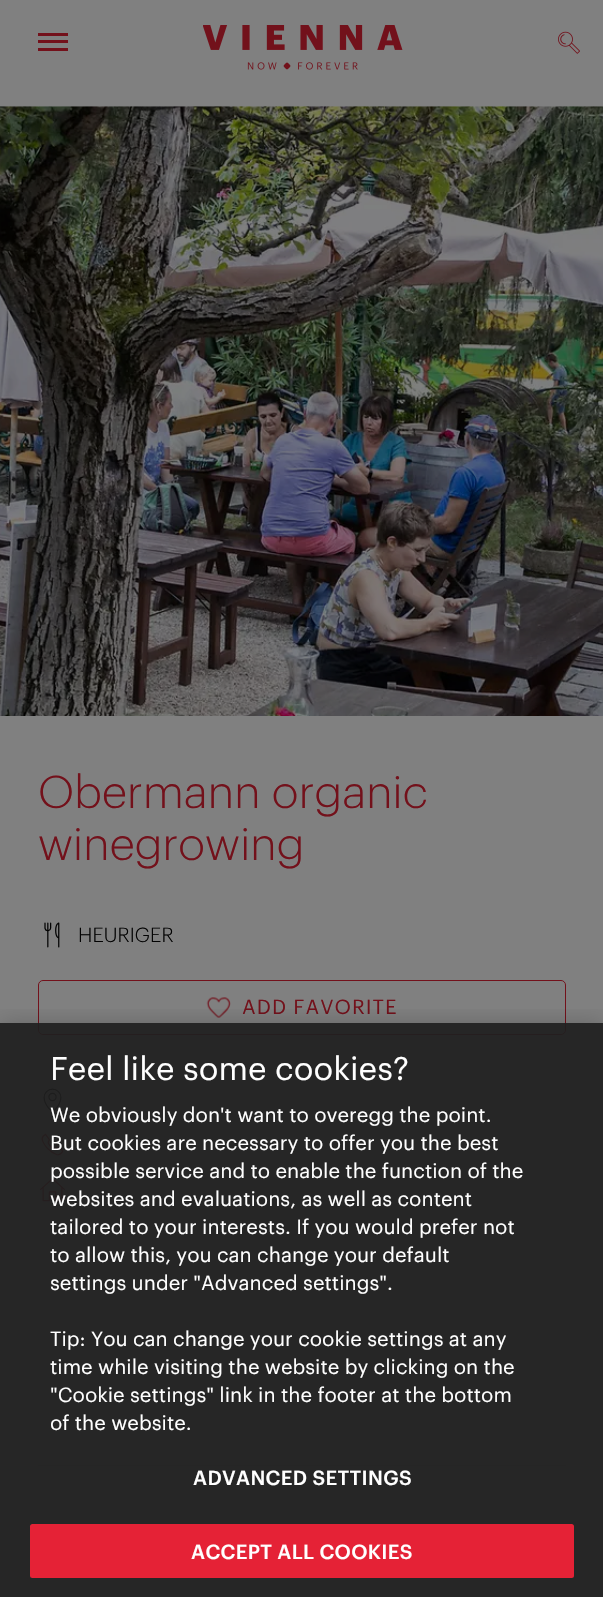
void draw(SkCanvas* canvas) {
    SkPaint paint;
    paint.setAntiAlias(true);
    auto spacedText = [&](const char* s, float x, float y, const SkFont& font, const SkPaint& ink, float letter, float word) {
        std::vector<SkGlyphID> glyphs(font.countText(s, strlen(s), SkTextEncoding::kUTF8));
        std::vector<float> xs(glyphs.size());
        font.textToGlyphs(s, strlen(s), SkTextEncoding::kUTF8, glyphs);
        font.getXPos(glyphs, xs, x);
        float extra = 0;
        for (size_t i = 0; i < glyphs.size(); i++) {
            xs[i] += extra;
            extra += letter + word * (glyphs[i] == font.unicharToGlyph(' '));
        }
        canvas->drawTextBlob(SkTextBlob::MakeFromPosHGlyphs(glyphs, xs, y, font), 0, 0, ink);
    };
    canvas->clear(0xFF808080);
    paint.setColor(0xFF73111B);
    canvas->drawRect(SkRect::MakeXYWH(38, 40, 30, 3), paint);
    canvas->drawRect(SkRect::MakeXYWH(38, 33, 30, 3), paint);
    canvas->drawRect(SkRect::MakeXYWH(38, 48, 30, 3), paint);
    canvas->drawImageRect(SkImages::DeferredFromEncodedData(SkData::MakeFromFileName("img1.png")), SkRect::MakeXYWH(203, 25, 200, 45), SkSamplingOptions());
    canvas->drawImageRect(SkImages::DeferredFromEncodedData(SkData::MakeFromFileName("img2.png")), SkRect::MakeXYWH(558, 31, 22, 23), SkSamplingOptions());
    canvas->drawImageRect(SkImages::DeferredFromEncodedData(SkData::MakeFromFileName("img3.png")), SkRect::MakeXYWH(0, 106, 603, 610), SkSamplingOptions());
    SkFont font1(fontMgr->matchFamilyStyle("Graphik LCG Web", SkFontStyle(300, SkFontStyle::kNormal_Width, SkFontStyle::kUpright_Slant)), 45);
    font1.setSubpixel(true);
    canvas->drawString("Obermann organic", 38, 808, font1, paint);
    canvas->drawString("winegrowing", 38, 860, font1, paint);
    canvas->drawImageRect(SkImages::DeferredFromEncodedData(SkData::MakeFromFileName("img4.png")), SkRect::MakeXYWH(44, 922, 16, 26), SkSamplingOptions());
    SkFont font2(fontMgr->matchFamilyStyle("Graphik LCG Web", SkFontStyle(300, SkFontStyle::kNormal_Width, SkFontStyle::kUpright_Slant)), 20);
    font2.setSubpixel(true);
    paint.setColor(0xFF020202);
    canvas->drawString("HEURIGER", 78, 942, font2, paint);
    paint.setStyle(SkPaint::kStroke_Style);
    paint.setStrokeWidth(1);
    paint.setColor(0xFF73111B);
    canvas->drawRoundRect(SkRect::MakeXYWH(38.5f, 980.5f, 527, 54), 4.5f, 4.5f, paint);
    canvas->drawImageRect(SkImages::DeferredFromEncodedData(SkData::MakeFromFileName("img5.png")), SkRect::MakeXYWH(206, 997, 25, 21), SkSamplingOptions());
    SkFont font3(fontMgr->matchFamilyStyle("Graphik LCG Web", SkFontStyle::Normal()), 20);
    font3.setSubpixel(true);
    paint.setStyle(SkPaint::kFill_Style);
    spacedText("ADD FAVORITE", 242, 1014, font3, paint, 1, 0);
    canvas->drawImageRect(SkImages::DeferredFromEncodedData(SkData::MakeFromFileName("img6.png")), SkRect::MakeXYWH(43, 1088, 19, 25), SkSamplingOptions());
    canvas->drawImageRect(SkImages::DeferredFromEncodedData(SkData::MakeFromFileName("img7.png")), SkRect::MakeXYWH(41, 1133, 23, 23), SkSamplingOptions());
    canvas->drawImageRect(SkImages::DeferredFromEncodedData(SkData::MakeFromFileName("img8.png")), SkRect::MakeXYWH(40, 1178, 25, 24), SkSamplingOptions());
    paint.setColor(0xFF717171);
    canvas->drawRect(SkRect::MakeXYWH(38, 1465, 528, 1), paint);
    canvas->save();
    canvas->clipRect(SkRect::MakeXYWH(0, 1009, 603, 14));
    paint.setColor(0x33000000);
    paint.setMaskFilter(SkMaskFilter::MakeBlur(kNormal_SkBlurStyle, 11));
    canvas->drawRect(SkRect::MakeXYWH(0, 1023, 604, 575), paint);
    paint.setMaskFilter(nullptr);
    canvas->restore();
    paint.setColor(0xEB1E1E1E);
    canvas->drawRect(SkRect::MakeXYWH(0, 1023, 603, 574), paint);
    SkFont font4(fontMgr->matchFamilyStyle("Graphik LCG Web", SkFontStyle::Normal()), 32);
    font4.setSubpixel(true);
    paint.setColor(0xFFFFFFFF);
    canvas->drawString("Feel like some cookies?", 50, 1080, font4, paint);
    canvas->drawString("We obviously don't want to overegg the point.", 50, 1122, font3, paint);
    canvas->drawString("But cookies are necessary to offer you the best", 50, 1150, font3, paint);
    canvas->drawString("possible service and to enable the function of the", 50, 1178, font3, paint);
    canvas->drawString("websites and evaluations, as well as content", 50, 1206, font3, paint);
    canvas->drawString("tailored to your interests. If you would prefer not", 50, 1234, font3, paint);
    canvas->drawString("to allow this, you can change your default", 50, 1262, font3, paint);
    canvas->drawString("settings under \"Advanced settings\".", 50, 1290, font3, paint);
    canvas->drawString("Tip: You can change your cookie settings at any", 50, 1346, font3, paint);
    canvas->drawString("time while visiting the website by clicking on the", 50, 1374, font3, paint);
    canvas->drawString("\"Cookie settings\" link in the footer at the bottom", 50, 1402, font3, paint);
    canvas->drawString("of the website.", 50, 1430, font3, paint);
    SkFont font5(fontMgr->matchFamilyStyle("Graphik LCG Web", SkFontStyle(500, SkFontStyle::kNormal_Width, SkFontStyle::kUpright_Slant)), 20);
    font5.setSubpixel(true);
    spacedText("ADVANCED SETTINGS", 193, 1485, font5, paint, 0.25f, 0);
    paint.setColor(0xFFE52236);
    canvas->drawRoundRect(SkRect::MakeXYWH(30, 1524, 544, 54), 2.5f, 2.5f, paint);
    paint.setColor(0xFFFFFFFF);
    spacedText("ACCEPT ALL COOKIES", 191, 1559, font5, paint, 0.25f, 0);
}
